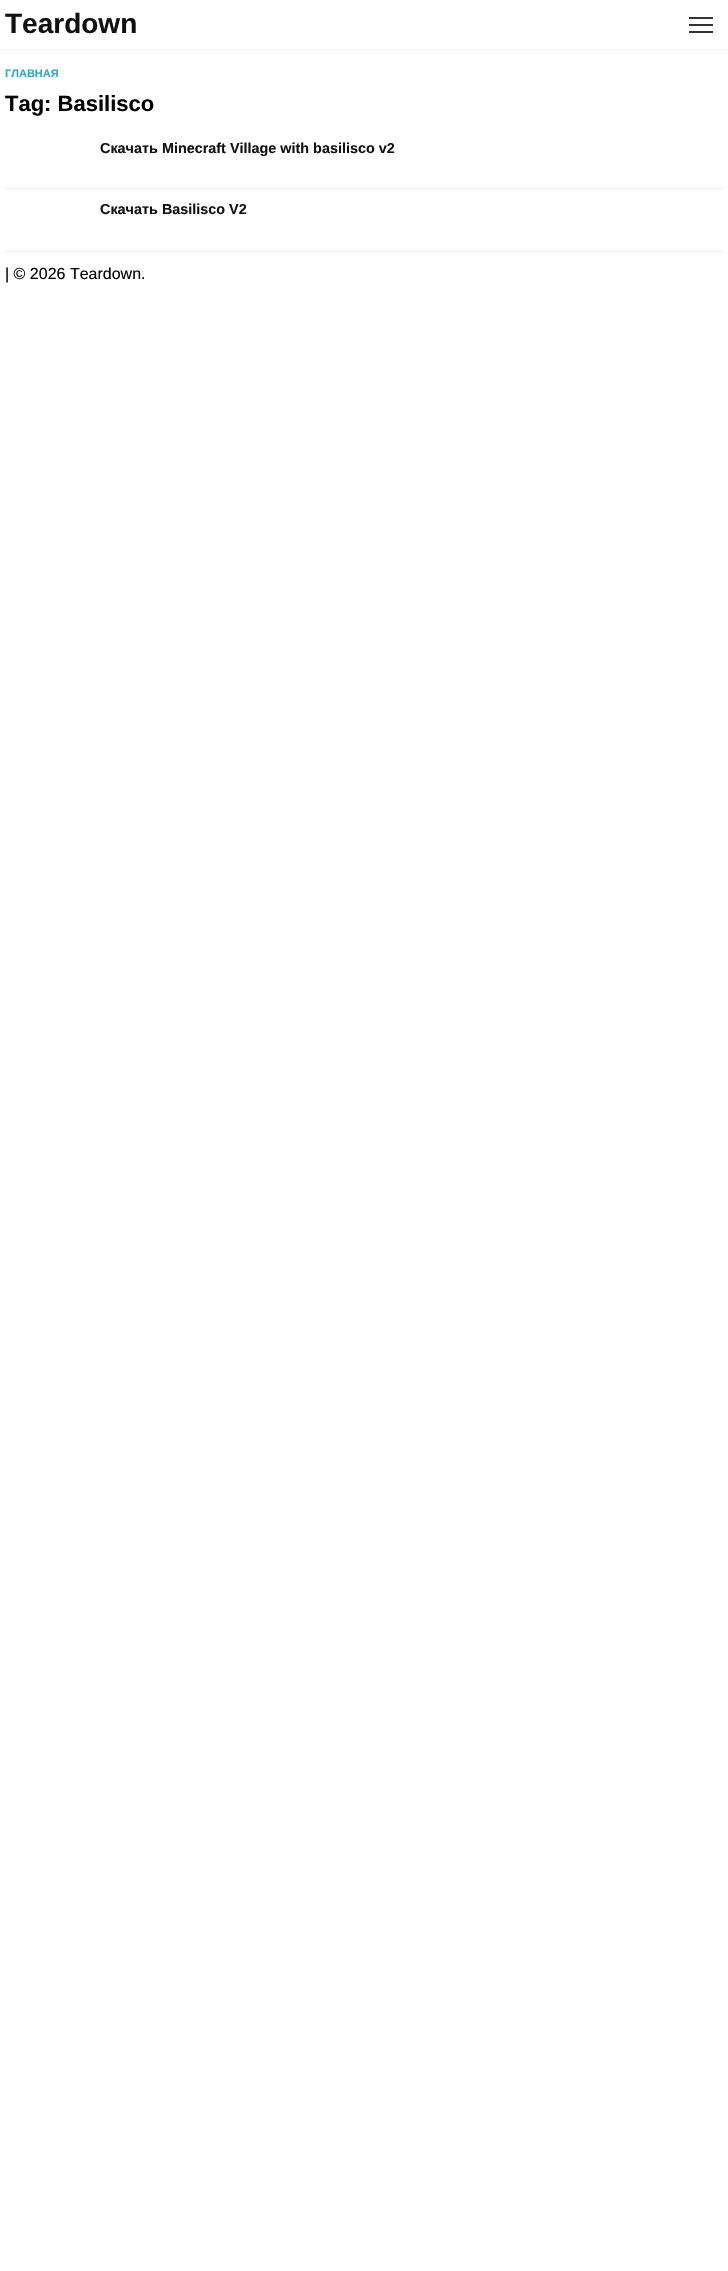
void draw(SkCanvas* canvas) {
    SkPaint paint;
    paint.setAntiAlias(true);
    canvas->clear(0xFFFFFFFF);
    paint.setColor(0xFFF2F5F9);
    canvas->drawRect(SkRect::MakeXYWH(0, 49, 728, 1), paint);
    SkFont font1(fontMgr->matchFamilyStyle("Liberation Sans", SkFontStyle::Bold()), 28);
    font1.setSubpixel(true);
    paint.setColor(0xFF111111);
    canvas->drawString("Teardown", 5, 33, font1, paint);
    paint.setColor(0xFF333333);
    canvas->drawRect(SkRect::MakeXYWH(689, 17, 24, 2), paint);
    canvas->drawRect(SkRect::MakeXYWH(689, 24, 24, 2), paint);
    canvas->drawRect(SkRect::MakeXYWH(689, 31, 24, 2), paint);
    SkFont font2(fontMgr->matchFamilyStyle("Liberation Sans", SkFontStyle::Bold()), 11);
    font2.setSubpixel(true);
    paint.setColor(0xFF34A9C1);
    canvas->drawString("ГЛАВНАЯ", 5, 77, font2, paint);
    SkFont font3(fontMgr->matchFamilyStyle("Liberation Sans", SkFontStyle::Bold()), 22);
    font3.setSubpixel(true);
    paint.setColor(0xFF000000);
    canvas->drawString("Tag: Basilisco", 5, 111, font3, paint);
    paint.setColor(0xFFF0F0F0);
    canvas->drawRect(SkRect::MakeXYWH(5, 188, 718, 1), paint);
    SkFont font4(fontMgr->matchFamilyStyle("Liberation Sans", SkFontStyle::Bold()), 14.4f);
    font4.setSubpixel(true);
    paint.setColor(0xFF111111);
    canvas->drawString("Скачать Minecraft Village with basilisco v2", 100, 153, font4, paint);
    paint.setColor(0xFFF0F0F0);
    canvas->drawRect(SkRect::MakeXYWH(5, 251, 718, 1), paint);
    paint.setColor(0xFF111111);
    canvas->drawString("Скачать Basilisco V2", 100, 214, font4, paint);
    SkFont font5(fontMgr->matchFamilyStyle("Liberation Sans", SkFontStyle::Normal()), 16);
    font5.setSubpixel(true);
    paint.setColor(0xFF000000);
    canvas->drawString("| © 2026 Teardown.", 5, 279, font5, paint);
}
